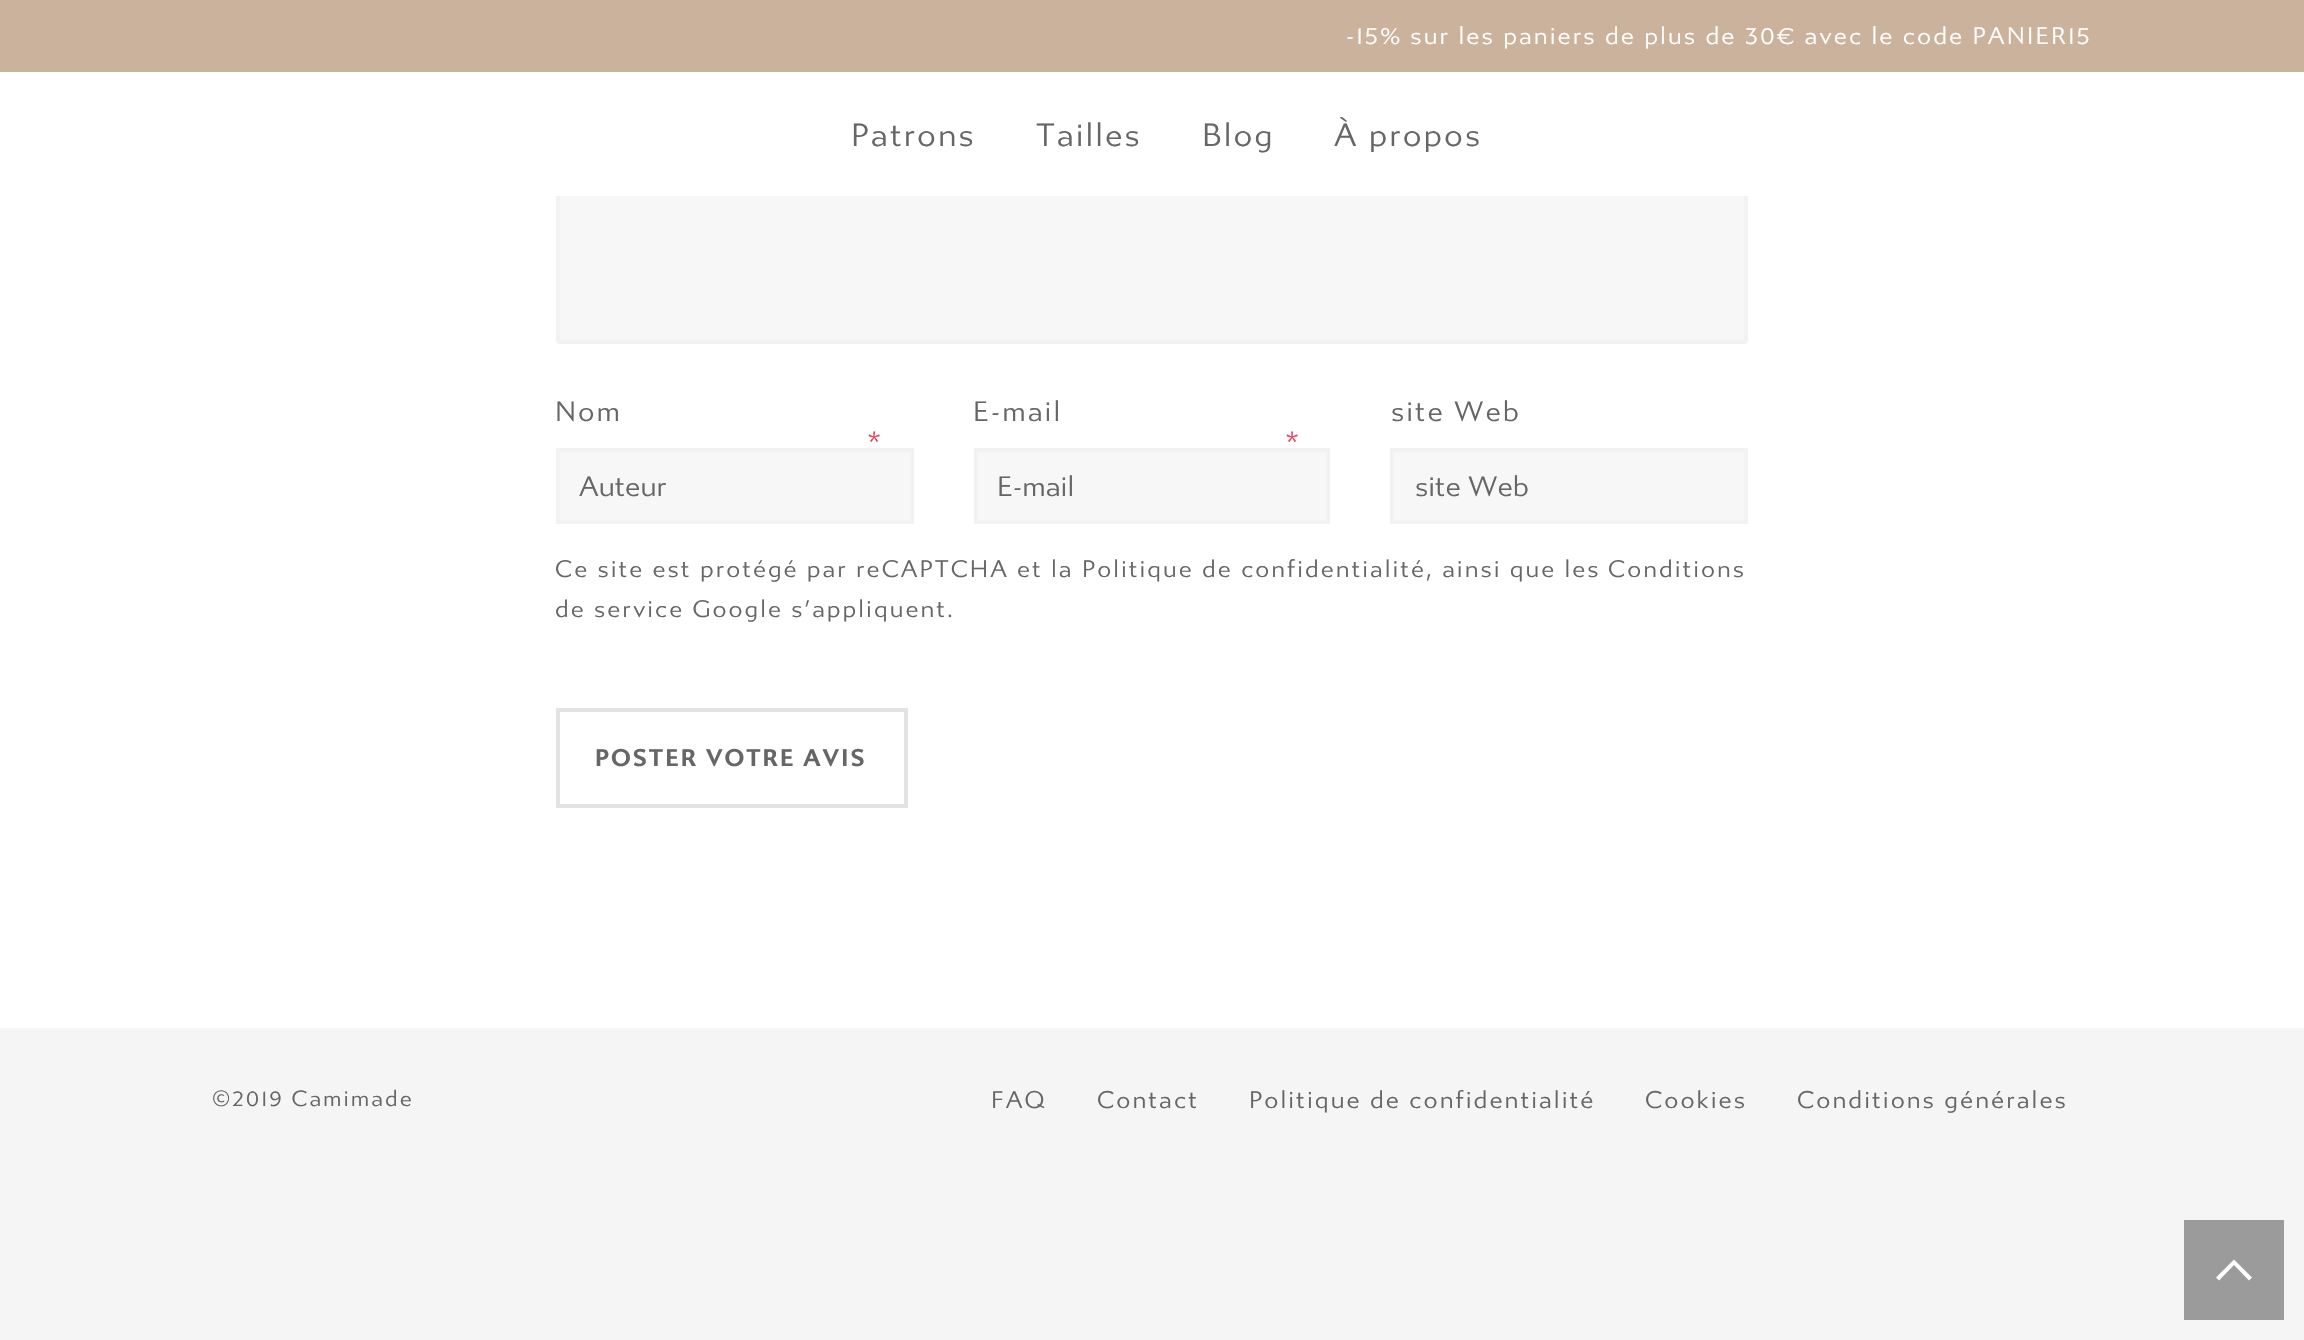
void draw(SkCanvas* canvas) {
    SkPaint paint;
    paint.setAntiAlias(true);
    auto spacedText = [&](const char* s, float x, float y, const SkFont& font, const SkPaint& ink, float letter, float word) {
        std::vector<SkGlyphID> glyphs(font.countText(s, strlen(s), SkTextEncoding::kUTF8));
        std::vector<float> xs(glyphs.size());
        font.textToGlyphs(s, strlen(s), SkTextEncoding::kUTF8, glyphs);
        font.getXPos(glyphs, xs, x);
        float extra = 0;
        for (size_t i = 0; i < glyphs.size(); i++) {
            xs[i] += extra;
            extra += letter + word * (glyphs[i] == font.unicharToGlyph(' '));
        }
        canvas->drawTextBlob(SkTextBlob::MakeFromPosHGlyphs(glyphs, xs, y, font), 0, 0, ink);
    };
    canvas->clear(0xFFFFFFFF);
    paint.setColor(0xFFF7F7F7);
    canvas->drawRect(SkRect::MakeXYWH(560, 196, 1184, 144), paint);
    paint.setStyle(SkPaint::kStroke_Style);
    paint.setStrokeWidth(4);
    paint.setColor(0xFFF2F2F2);
    canvas->drawRoundRect(SkRect::MakeXYWH(558, -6, 1188, 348), 2, 2, paint);
    paint.setStyle(SkPaint::kFill_Style);
    paint.setColor(0xFFCAB29D);
    canvas->drawRect(SkRect::MakeXYWH(0, 0, 2304, 72), paint);
    SkFont font1(fontMgr->matchFamilyStyle("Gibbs", SkFontStyle::Normal()), 24);
    font1.setSubpixel(true);
    paint.setColor(0xFFFFFFFF);
    spacedText("-15% sur les paniers de plus de 30€ avec le code PANIER15", 1346, 44, font1, paint, 2, 0);
    canvas->drawRect(SkRect::MakeXYWH(556, 72, 1192, 124), paint);
    SkFont font2(fontMgr->matchFamilyStyle("Gibbs", SkFontStyle::Normal()), 32);
    font2.setSubpixel(true);
    paint.setColor(0xFF666666);
    spacedText("Patrons", 851, 146, font2, paint, 2, 0);
    spacedText("Tailles", 1036, 146, font2, paint, 2, 0);
    spacedText("Blog", 1202, 146, font2, paint, 2, 0);
    spacedText("À propos", 1334, 146, font2, paint, 2, 0);
    SkFont font3(fontMgr->matchFamilyStyle("Gibbs", SkFontStyle::Normal()), 28);
    font3.setSubpixel(true);
    spacedText("Nom", 555, 421, font3, paint, 2, 0);
    paint.setColor(0xFFEE3C59);
    spacedText("*", 867, 451, font3, paint, 2, 0);
    paint.setColor(0xFFF7F7F7);
    canvas->drawRect(SkRect::MakeXYWH(558, 450, 354, 72), paint);
    paint.setStyle(SkPaint::kStroke_Style);
    paint.setColor(0xFFF2F2F2);
    canvas->drawRect(SkRect::MakeXYWH(558, 450, 354, 72), paint);
    paint.setStyle(SkPaint::kFill_Style);
    paint.setColor(0xFF666666);
    canvas->drawString("Auteur", 579, 496, font3, paint);
    spacedText("E-mail", 973, 421, font3, paint, 2, 0);
    paint.setColor(0xFFEE3C59);
    spacedText("*", 1285, 451, font3, paint, 2, 0);
    paint.setColor(0xFFF7F7F7);
    canvas->drawRect(SkRect::MakeXYWH(976, 450, 352, 72), paint);
    paint.setStyle(SkPaint::kStroke_Style);
    paint.setColor(0xFFF2F2F2);
    canvas->drawRect(SkRect::MakeXYWH(976, 450, 352, 72), paint);
    paint.setStyle(SkPaint::kFill_Style);
    paint.setColor(0xFF666666);
    canvas->drawString("E-mail", 997, 496, font3, paint);
    spacedText("site Web", 1391, 421, font3, paint, 2, 0);
    paint.setColor(0xFFF7F7F7);
    canvas->drawRect(SkRect::MakeXYWH(1392, 450, 354, 72), paint);
    paint.setStyle(SkPaint::kStroke_Style);
    paint.setColor(0xFFF2F2F2);
    canvas->drawRect(SkRect::MakeXYWH(1392, 450, 354, 72), paint);
    paint.setStyle(SkPaint::kFill_Style);
    paint.setColor(0xFF666666);
    canvas->drawString("site Web", 1415, 496, font3, paint);
    SkFont font4(fontMgr->matchFamilyStyle("Gibbs", SkFontStyle::Normal()), 23.8f);
    font4.setSubpixel(true);
    spacedText("Ce site est protégé par reCAPTCHA et la", 555, 577, font4, paint, 2, 0);
    spacedText("Politique de confidentialité, ainsi que les", 1082, 577, font4, paint, 2, 0);
    spacedText("Conditions", 1608, 577, font4, paint, 2, 0);
    spacedText("de service Google s’appliquent.", 555, 617, font4, paint, 2, 0);
    paint.setStyle(SkPaint::kStroke_Style);
    paint.setColor(0xFFE3E3E3);
    canvas->drawRect(SkRect::MakeXYWH(558, 710, 348, 96), paint);
    SkFont font5(fontMgr->matchFamilyStyle("Gibbs", SkFontStyle::Bold()), 24);
    font5.setSubpixel(true);
    paint.setStyle(SkPaint::kFill_Style);
    paint.setColor(0xFF666666);
    spacedText("POSTER VOTRE AVIS", 595, 766, font5, paint, 2, 0);
    paint.setColor(0xFFF6F5F6);
    canvas->drawRect(SkRect::MakeXYWH(0, 1030, 2304, 310), paint);
    paint.setColor(0xFFF7F7F7);
    canvas->drawRect(SkRect::MakeXYWH(0, 1028, 2304, 2), paint);
    SkFont font6(fontMgr->matchFamilyStyle("Gibbs", SkFontStyle::Normal()), 22);
    font6.setSubpixel(true);
    paint.setColor(0xFF666666);
    spacedText("©2019 Camimade", 212, 1106, font6, paint, 2, 0);
    spacedText("FAQ", 991, 1108, font1, paint, 2, 0);
    spacedText("Contact", 1097, 1108, font1, paint, 2, 0);
    spacedText("Politique de confidentialité", 1249, 1108, font1, paint, 2, 0);
    spacedText("Cookies", 1645, 1108, font1, paint, 2, 0);
    spacedText("Conditions générales", 1797, 1108, font1, paint, 2, 0);
    paint.setColor(0xFF9C9B9C);
    canvas->drawRect(SkRect::MakeXYWH(2184, 1220, 100, 100), paint);
    paint.setColor(0xFFFFFFFF);
    canvas->drawPath(SkPathBuilder().moveTo(2216, 1277.5f).lineTo(2219, 1280.5f).lineTo(2234, 1265).lineTo(2249, 1280.5f).lineTo(2252, 1277.5f).lineTo(2234, 1259.5f).close().detach(), paint);
}
